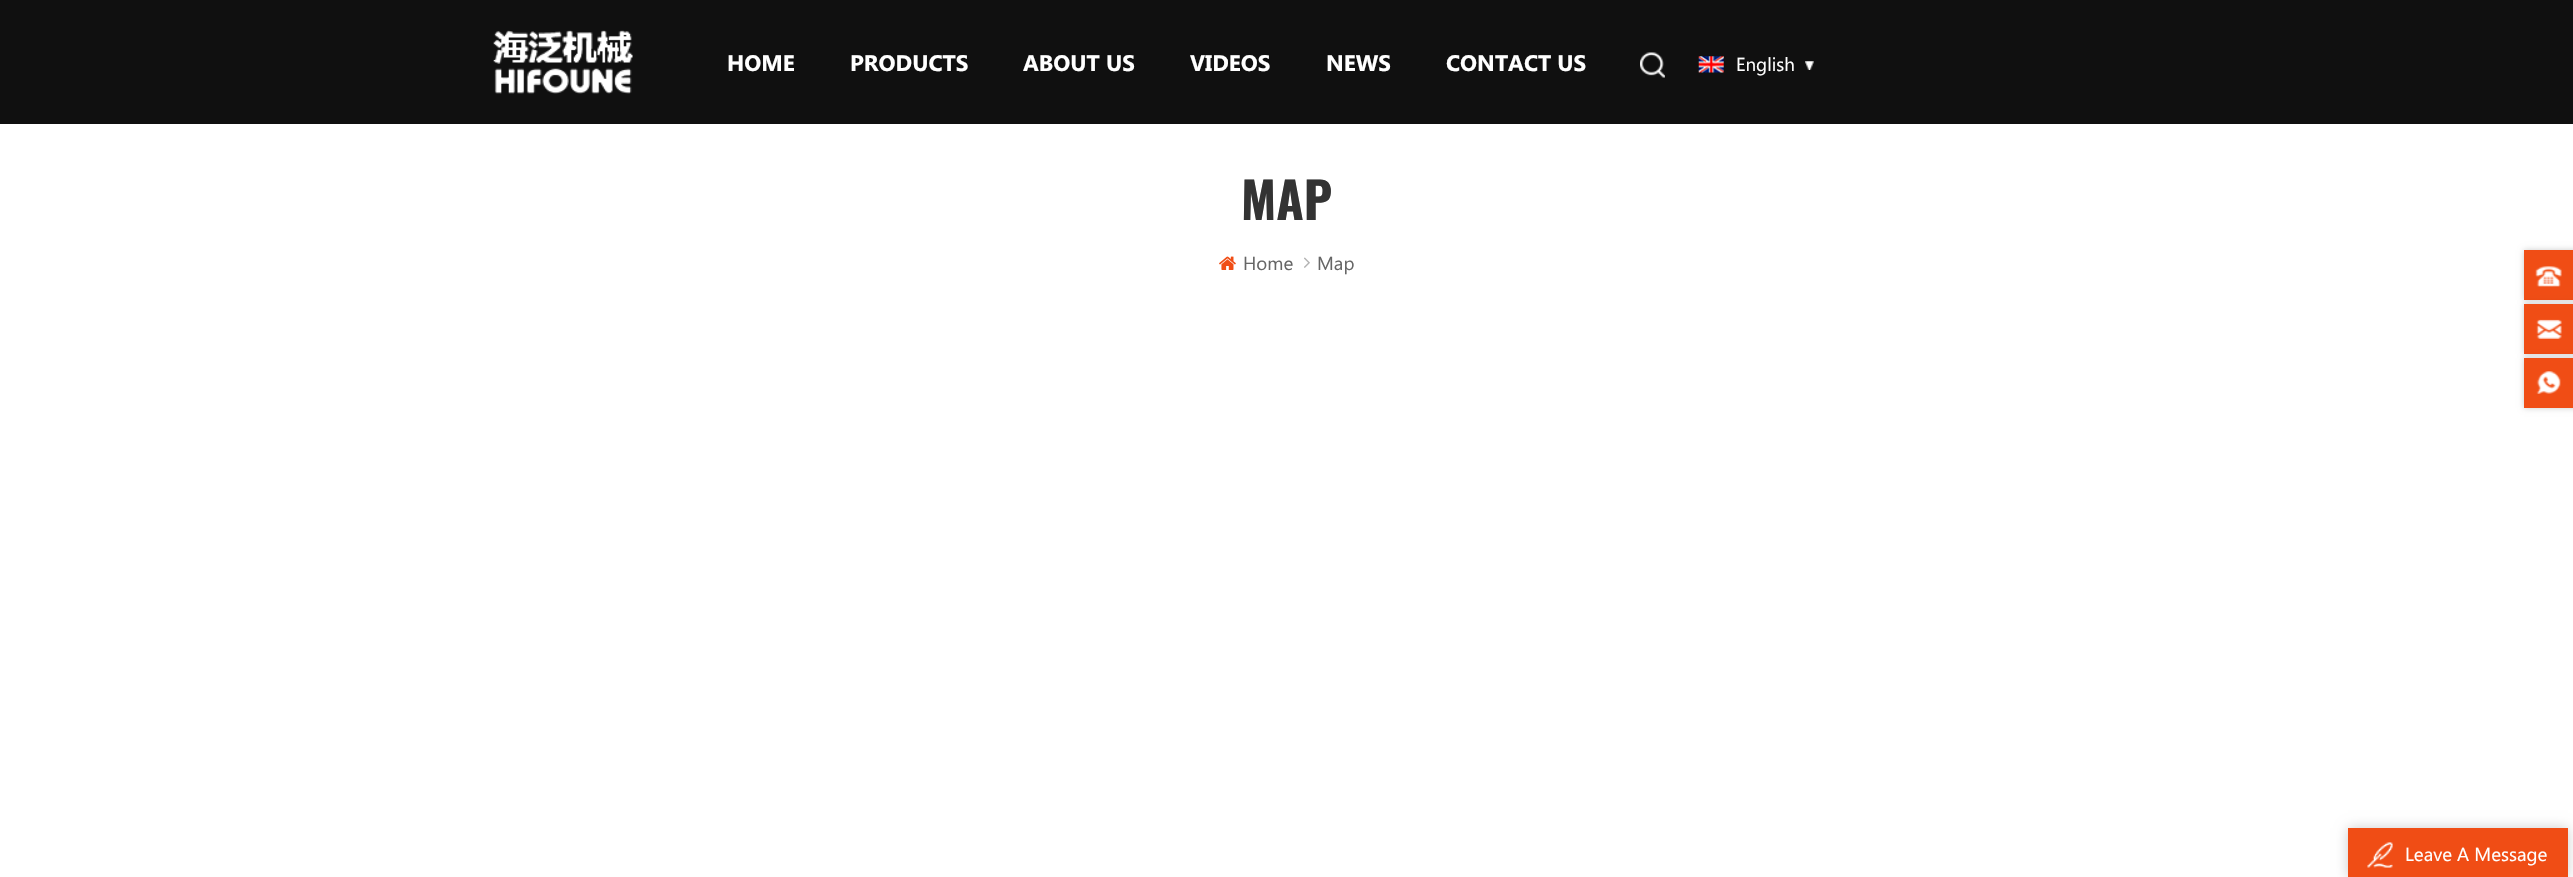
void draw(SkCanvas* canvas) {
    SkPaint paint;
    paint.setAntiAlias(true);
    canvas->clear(0xFFFFFFFF);
    paint.setColor(0xFF101010);
    canvas->drawRect(SkRect::MakeXYWH(0, 0, 2573, 124), paint);
    canvas->drawImageRect(SkImages::DeferredFromEncodedData(SkData::MakeFromFileName("img1.png")), SkRect::MakeXYWH(493, 30, 140, 64), SkSamplingOptions());
    SkFont font1(fontMgr->matchFamilyStyle("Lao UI", SkFontStyle::Bold()), 22.5f);
    font1.setSubpixel(true);
    paint.setColor(0xFFFFFFFF);
    canvas->drawString("HOME", 727, 71, font1, paint);
    canvas->drawString("PRODUCTS", 850, 71, font1, paint);
    canvas->drawString("ABOUT US", 1023, 71, font1, paint);
    canvas->drawString("VIDEOS", 1190, 71, font1, paint);
    canvas->drawString("NEWS", 1326, 71, font1, paint);
    canvas->drawString("CONTACT US", 1446, 71, font1, paint);
    canvas->drawImageRect(SkImages::DeferredFromEncodedData(SkData::MakeFromFileName("img2.png")), SkRect::MakeXYWH(1640, 52, 25, 26), SkSamplingOptions());
    canvas->drawImageRect(SkImages::DeferredFromEncodedData(SkData::MakeFromFileName("img3.png")), SkRect::MakeXYWH(1698, 56, 26, 17), SkSamplingOptions());
    SkFont font2(fontMgr->matchFamilyStyle("Lao UI", SkFontStyle::Normal()), 18.75f);
    font2.setSubpixel(true);
    canvas->drawString("English", 1736, 71, font2, paint);
    canvas->drawImageRect(SkImages::DeferredFromEncodedData(SkData::MakeFromFileName("img4.png")), SkRect::MakeXYWH(1805, 61, 9, 9), SkSamplingOptions());
    SkFont font3(fontMgr->matchFamilyStyle("Oswald", SkFontStyle::Bold()), 50);
    font3.setSubpixel(true);
    paint.setColor(0xFF333333);
    canvas->drawString("MAP", 1241, 220, font3, paint);
    canvas->drawImageRect(SkImages::DeferredFromEncodedData(SkData::MakeFromFileName("img5.png")), SkRect::MakeXYWH(1219, 256, 17, 14), SkSamplingOptions());
    paint.setColor(0xFF666666);
    canvas->drawString("Home", 1243, 270, font2, paint);
    canvas->drawImageRect(SkImages::DeferredFromEncodedData(SkData::MakeFromFileName("img6.png")), SkRect::MakeXYWH(1304, 257, 6, 11), SkSamplingOptions());
    canvas->drawString("Map", 1317, 270, font2, paint);
    paint.setColor(0x33000000);
    paint.setMaskFilter(SkMaskFilter::MakeBlur(kNormal_SkBlurStyle, 3));
    canvas->drawRect(SkRect::MakeXYWH(2524, 250, 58, 50), paint);
    paint.setMaskFilter(nullptr);
    paint.setColor(0xFFF04D15);
    canvas->drawRect(SkRect::MakeXYWH(2524, 250, 49, 50), paint);
    canvas->drawImageRect(SkImages::DeferredFromEncodedData(SkData::MakeFromFileName("img7.png")), SkRect::MakeXYWH(2535, 266, 27, 21), SkSamplingOptions());
    paint.setColor(0x33000000);
    paint.setMaskFilter(SkMaskFilter::MakeBlur(kNormal_SkBlurStyle, 3));
    canvas->drawRect(SkRect::MakeXYWH(2524, 304, 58, 50), paint);
    paint.setMaskFilter(nullptr);
    paint.setColor(0xFFF04D15);
    canvas->drawRect(SkRect::MakeXYWH(2524, 304, 49, 50), paint);
    canvas->drawImageRect(SkImages::DeferredFromEncodedData(SkData::MakeFromFileName("img8.png")), SkRect::MakeXYWH(2536, 319, 26, 20), SkSamplingOptions());
    paint.setColor(0x33000000);
    paint.setMaskFilter(SkMaskFilter::MakeBlur(kNormal_SkBlurStyle, 3));
    canvas->drawRect(SkRect::MakeXYWH(2524, 358, 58, 50), paint);
    paint.setMaskFilter(nullptr);
    paint.setColor(0xFFF04D15);
    canvas->drawRect(SkRect::MakeXYWH(2524, 358, 49, 50), paint);
    canvas->drawImageRect(SkImages::DeferredFromEncodedData(SkData::MakeFromFileName("img9.png")), SkRect::MakeXYWH(2536, 371, 25, 23), SkSamplingOptions());
    paint.setColor(0x33000000);
    paint.setMaskFilter(SkMaskFilter::MakeBlur(kNormal_SkBlurStyle, 6));
    canvas->drawRect(SkRect::MakeXYWH(2348, 828, 220, 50), paint);
    paint.setMaskFilter(nullptr);
    paint.setColor(0xFFF04D15);
    canvas->drawRect(SkRect::MakeXYWH(2348, 828, 220, 49), paint);
    canvas->drawImageRect(SkImages::DeferredFromEncodedData(SkData::MakeFromFileName("img10.png")), SkRect::MakeXYWH(2367, 842, 26, 26), SkSamplingOptions());
    paint.setColor(0xFFFFFFFF);
    canvas->drawString("Leave A Message", 2405, 861, font2, paint);
}
